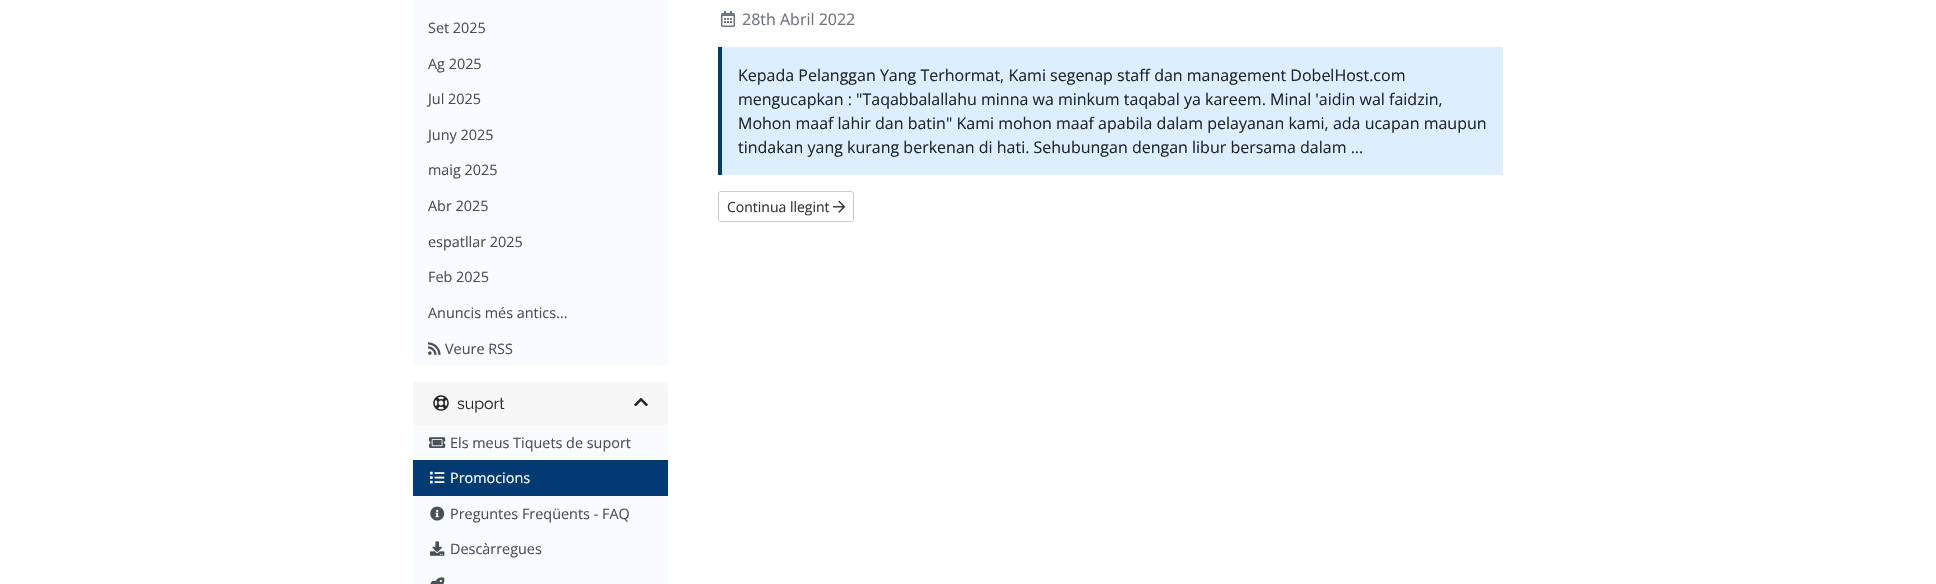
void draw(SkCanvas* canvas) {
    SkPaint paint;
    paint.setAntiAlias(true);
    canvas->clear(0xFFFFFFFF);
    paint.setColor(0xFFF8FCFF);
    canvas->drawRect(SkRect::MakeXYWH(413, 0, 255, 366), paint);
    SkFont font1(fontMgr->matchFamilyStyle("Open Sans", SkFontStyle::Normal()), 14.4f);
    font1.setSubpixel(true);
    paint.setColor(0xFF495057);
    canvas->drawString("Set 2025", 428, 33, font1, paint);
    canvas->drawString("Ag 2025", 428, 69, font1, paint);
    canvas->drawString("Jul 2025", 428, 104, font1, paint);
    canvas->drawString("Juny 2025", 428, 140, font1, paint);
    canvas->drawString("maig 2025", 428, 175, font1, paint);
    canvas->drawString("Abr 2025", 428, 211, font1, paint);
    canvas->drawString("espatllar 2025", 428, 247, font1, paint);
    canvas->drawString("Feb 2025", 428, 282, font1, paint);
    canvas->drawString("Anuncis més antics...", 428, 318, font1, paint);
    canvas->drawImageRect(SkImages::DeferredFromEncodedData(SkData::MakeFromFileName("img1.png")), SkRect::MakeXYWH(428, 342, 13, 13), SkSamplingOptions());
    canvas->drawString("Veure RSS", 445, 354, font1, paint);
    paint.setColor(0xFFF7F7F7);
    canvas->drawPath(SkPathBuilder().moveTo(416, 382).lineTo(665, 382).cubicTo(666.5f, 382, 668, 383.5f, 668, 385).lineTo(668, 425).lineTo(413, 425).lineTo(413, 385).cubicTo(413, 383.5f, 414.5f, 382, 416, 382).close().detach(), paint);
    canvas->drawImageRect(SkImages::DeferredFromEncodedData(SkData::MakeFromFileName("img2.png")), SkRect::MakeXYWH(433, 395, 16, 16), SkSamplingOptions());
    SkFont font2(fontMgr->matchFamilyStyle("Raleway", SkFontStyle::Normal()), 16);
    font2.setSubpixel(true);
    paint.setColor(0xFF212529);
    canvas->drawString("suport", 457, 409, font2, paint);
    canvas->drawImageRect(SkImages::DeferredFromEncodedData(SkData::MakeFromFileName("img3.png")), SkRect::MakeXYWH(634, 397, 14, 10), SkSamplingOptions());
    paint.setColor(0xFFF8FCFF);
    canvas->drawRect(SkRect::MakeXYWH(413, 425, 255, 35), paint);
    canvas->drawImageRect(SkImages::DeferredFromEncodedData(SkData::MakeFromFileName("img4.png")), SkRect::MakeXYWH(429, 437, 17, 11), SkSamplingOptions());
    paint.setColor(0xFF495057);
    canvas->drawString("Els meus Tiquets de suport", 450, 448, font1, paint);
    paint.setColor(0xFF023B72);
    canvas->drawRect(SkRect::MakeXYWH(413, 460, 255, 36), paint);
    canvas->drawImageRect(SkImages::DeferredFromEncodedData(SkData::MakeFromFileName("img5.png")), SkRect::MakeXYWH(430, 471, 15, 13), SkSamplingOptions());
    paint.setColor(0xFFFFFFFF);
    canvas->drawString("Promocions", 450, 483, font1, paint);
    paint.setColor(0xFFF8FCFF);
    canvas->drawRect(SkRect::MakeXYWH(413, 496, 255, 88), paint);
    canvas->drawImageRect(SkImages::DeferredFromEncodedData(SkData::MakeFromFileName("img6.png")), SkRect::MakeXYWH(430, 506, 15, 15), SkSamplingOptions());
    paint.setColor(0xFF495057);
    canvas->drawString("Preguntes Freqüents - FAQ", 450, 519, font1, paint);
    canvas->drawImageRect(SkImages::DeferredFromEncodedData(SkData::MakeFromFileName("img7.png")), SkRect::MakeXYWH(430, 541, 15, 15), SkSamplingOptions());
    canvas->drawString("Descàrregues", 450, 554, font1, paint);
    canvas->drawImageRect(SkImages::DeferredFromEncodedData(SkData::MakeFromFileName("img8.png")), SkRect::MakeXYWH(430, 577, 15, 7), SkSamplingOptions());
    canvas->drawImageRect(SkImages::DeferredFromEncodedData(SkData::MakeFromFileName("img9.png")), SkRect::MakeXYWH(721, 11, 14, 16), SkSamplingOptions());
    SkFont font3(fontMgr->matchFamilyStyle("Open Sans", SkFontStyle::Normal()), 16);
    font3.setSubpixel(true);
    paint.setColor(0xFF6C757D);
    canvas->drawString("28th Abril 2022", 742, 25, font3, paint);
    paint.setColor(0xFFDCEEFF);
    canvas->drawRect(SkRect::MakeXYWH(722, 47, 781, 128), paint);
    paint.setColor(0xFF023B72);
    canvas->drawRect(SkRect::MakeXYWH(718, 47, 4, 128), paint);
    paint.setColor(0xFF212529);
    canvas->drawString("Kepada Pelanggan Yang Terhormat, Kami segenap staff dan management DobelHost.com", 738, 81, font3, paint);
    canvas->drawString("mengucapkan : \"Taqabbalallahu minna wa minkum taqabal ya kareem. Minal 'aidin wal faidzin,", 738, 105, font3, paint);
    canvas->drawString("Mohon maaf lahir dan batin\" Kami mohon maaf apabila dalam pelayanan kami, ada ucapan maupun", 738, 129, font3, paint);
    canvas->drawString("tindakan yang kurang berkenan di hati. Sehubungan dengan libur bersama dalam ...", 738, 153, font3, paint);
    paint.setStyle(SkPaint::kStroke_Style);
    paint.setStrokeWidth(1);
    paint.setColor(0xFFCCCCCC);
    canvas->drawRoundRect(SkRect::MakeXYWH(718.5f, 191.5f, 135, 30), 2.5f, 2.5f, paint);
    SkFont font4(fontMgr->matchFamilyStyle("Open Sans", SkFontStyle::Normal()), 14);
    font4.setSubpixel(true);
    paint.setStyle(SkPaint::kFill_Style);
    paint.setColor(0xFF333333);
    canvas->drawString("Continua llegint", 727, 212, font4, paint);
    canvas->drawImageRect(SkImages::DeferredFromEncodedData(SkData::MakeFromFileName("img10.png")), SkRect::MakeXYWH(833, 200, 13, 13), SkSamplingOptions());
}
